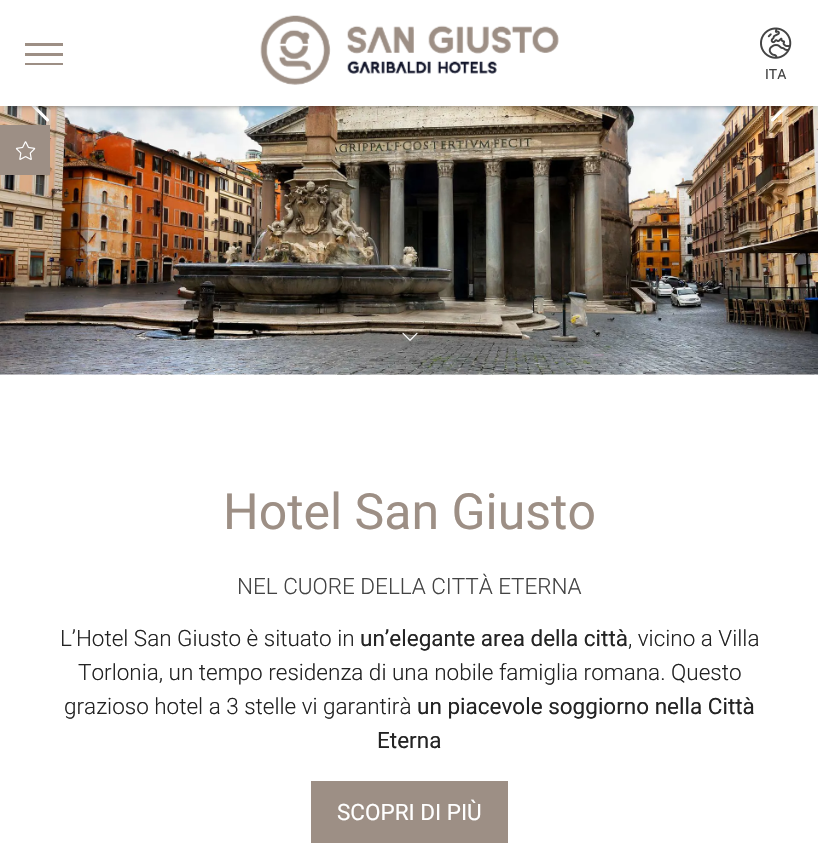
void draw(SkCanvas* canvas) {
    SkPaint paint;
    paint.setAntiAlias(true);
    canvas->clear(0xFFFFFFFF);
    canvas->drawImageRect(SkImages::DeferredFromEncodedData(SkData::MakeFromFileName("img3.png")), SkRect::MakeXYWH(0, 106, 818, 269), SkSamplingOptions());
    canvas->drawImageRect(SkImages::DeferredFromEncodedData(SkData::MakeFromFileName("img4.png")), SkRect::MakeXYWH(31, 106, 18, 16), SkSamplingOptions());
    canvas->drawImageRect(SkImages::DeferredFromEncodedData(SkData::MakeFromFileName("img5.png")), SkRect::MakeXYWH(771, 106, 18, 16), SkSamplingOptions());
    paint.setColor(0xFF000000);
    paint.setMaskFilter(SkMaskFilter::MakeBlur(kNormal_SkBlurStyle, 4));
    canvas->drawRect(SkRect::MakeXYWH(9, 9, 806, 94), paint);
    paint.setMaskFilter(nullptr);
    paint.setColor(0xFFFFFFFF);
    canvas->drawRect(SkRect::MakeXYWH(0, 0, 818, 106), paint);
    paint.setColor(0xFF9D8F85);
    canvas->drawRect(SkRect::MakeXYWH(25, 43, 38, 3), paint);
    canvas->drawRect(SkRect::MakeXYWH(25, 53, 38, 3), paint);
    canvas->drawRect(SkRect::MakeXYWH(25, 63, 38, 2), paint);
    canvas->drawImageRect(SkImages::DeferredFromEncodedData(SkData::MakeFromFileName("img1.png")), SkRect::MakeXYWH(260, 15, 299, 70), SkSamplingOptions());
    canvas->drawImageRect(SkImages::DeferredFromEncodedData(SkData::MakeFromFileName("img2.png")), SkRect::MakeXYWH(760, 27, 32, 32), SkSamplingOptions());
    SkFont font1(fontMgr->matchFamilyStyle("Roboto", SkFontStyle::Normal()), 14);
    font1.setSubpixel(true);
    paint.setColor(0xFF434343);
    canvas->drawString("ITA", 765, 79, font1, paint);
    canvas->drawImageRect(SkImages::DeferredFromEncodedData(SkData::MakeFromFileName("img6.png")), SkRect::MakeXYWH(402, 332, 16, 9), SkSamplingOptions());
    paint.setColor(0xFF9D8F85);
    canvas->drawRect(SkRect::MakeXYWH(0, 125, 50, 50), paint);
    canvas->drawImageRect(SkImages::DeferredFromEncodedData(SkData::MakeFromFileName("img7.png")), SkRect::MakeXYWH(15, 141, 21, 19), SkSamplingOptions());
    SkFont font2(fontMgr->matchFamilyStyle("Roboto", SkFontStyle::Normal()), 50);
    font2.setSubpixel(true);
    canvas->drawString("Hotel San Giusto", 223, 529, font2, paint);
    SkFont font3(fontMgr->matchFamilyStyle("Roboto", SkFontStyle(300, SkFontStyle::kNormal_Width, SkFontStyle::kUpright_Slant)), 22.5f);
    font3.setSubpixel(true);
    paint.setColor(0xFF434343);
    canvas->drawString("NEL CUORE DELLA CITTÀ ETERNA", 237, 594, font3, paint);
    paint.setColor(0xFF232323);
    canvas->drawString("L’Hotel San Giusto è situato in", 60, 646, font3, paint);
    SkFont font4(fontMgr->matchFamilyStyle("Roboto", SkFontStyle::Normal()), 22.5f);
    font4.setSubpixel(true);
    canvas->drawString("un’elegante area della città", 360, 646, font4, paint);
    canvas->drawString(", vicino a Villa", 628, 646, font3, paint);
    canvas->drawString("Torlonia, un tempo residenza di una nobile famiglia romana. Questo", 78, 680, font3, paint);
    canvas->drawString("grazioso hotel a 3 stelle vi garantirà", 64, 714, font3, paint);
    canvas->drawString("un piacevole soggiorno nella Città", 417, 714, font4, paint);
    canvas->drawString("Eterna", 377, 748, font4, paint);
    paint.setColor(0xFF9D8F85);
    canvas->drawRect(SkRect::MakeXYWH(311, 781, 197, 62), paint);
    paint.setColor(0xFFFFFFFF);
    canvas->drawString("SCOPRI DI PIÙ", 337, 820, font4, paint);
}
